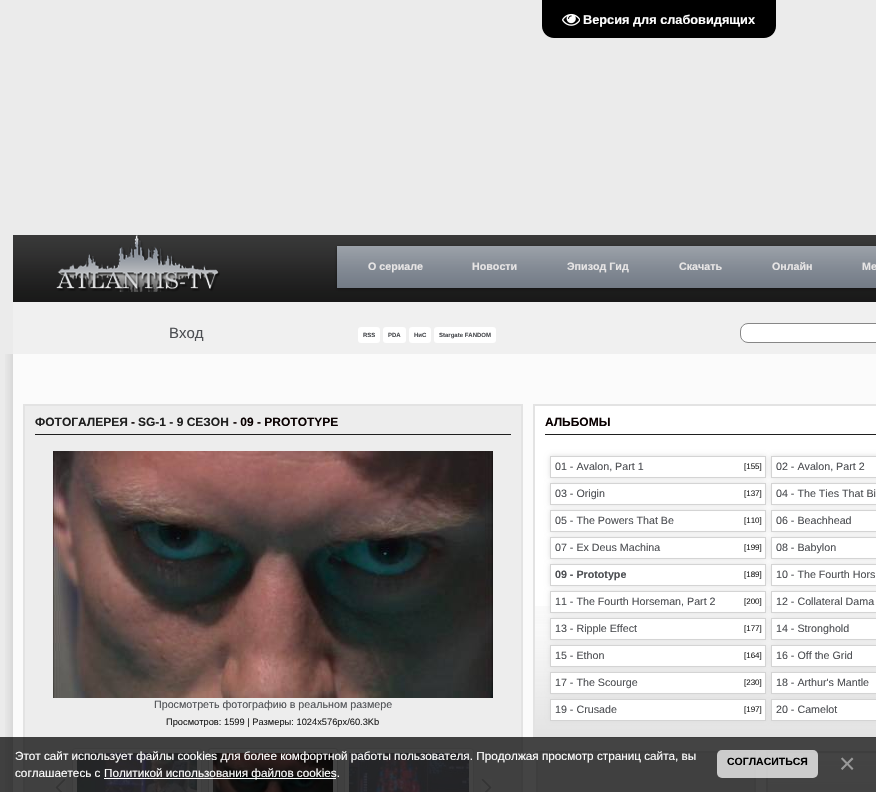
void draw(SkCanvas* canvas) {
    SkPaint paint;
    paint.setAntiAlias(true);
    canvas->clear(0xFFEBEBEB);
    paint.setColor(0xFF000000);
    canvas->drawPath(SkPathBuilder().moveTo(542, 0).lineTo(776, 0).lineTo(776, 26).cubicTo(776, 32.5f, 770.5f, 38, 764, 38).lineTo(554, 38).cubicTo(547.5f, 38, 542, 32.5f, 542, 26).close().detach(), paint);
    canvas->drawImageRect(SkImages::DeferredFromEncodedData(SkData::MakeFromFileName("img1.png")), SkRect::MakeXYWH(562, 13, 18, 13), SkSamplingOptions());
    SkFont font1(fontMgr->matchFamilyStyle("Liberation Sans", SkFontStyle::Bold()), 12.75f);
    font1.setSubpixel(true);
    paint.setColor(0xFFFFFFFF);
    canvas->drawString("Версия для слабовидящих", 583, 24, font1, paint);
    canvas->drawImageRect(SkImages::DeferredFromEncodedData(SkData::MakeFromFileName("img2.png")), SkRect::MakeXYWH(13, 235, 863, 67), SkSamplingOptions());
    canvas->drawImageRect(SkImages::DeferredFromEncodedData(SkData::MakeFromFileName("img3.png")), SkRect::MakeXYWH(56, 235, 164, 57), SkSamplingOptions());
    paint.setColor(0x66000000);
    paint.setMaskFilter(SkMaskFilter::MakeBlur(kNormal_SkBlurStyle, 1.5f));
    canvas->drawRect(SkRect::MakeXYWH(337, 247, 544, 42), paint);
    paint.setMaskFilter(nullptr);
    paint.setColor(0xFF67707C);
    canvas->drawRect(SkRect::MakeXYWH(337, 246, 539, 42), paint);
    canvas->drawImageRect(SkImages::DeferredFromEncodedData(SkData::MakeFromFileName("img4.png")), SkRect::MakeXYWH(337, 246, 539, 42), SkSamplingOptions());
    SkFont font2(fontMgr->matchFamilyStyle("Liberation Sans", SkFontStyle::Bold()), 10.7f);
    font2.setSubpixel(true);
    paint.setColor(0xFFE7E5E5);
    canvas->drawString("О сериале", 368, 270, font2, paint);
    canvas->drawString("Новости", 472, 270, font2, paint);
    canvas->drawString("Эпизод Гид", 567, 270, font2, paint);
    canvas->drawString("Скачать", 679, 270, font2, paint);
    canvas->drawString("Онлайн", 772, 270, font2, paint);
    canvas->drawString("Ме", 862, 270, font2, paint);
    paint.setColor(0xFFF0F0F0);
    canvas->drawRect(SkRect::MakeXYWH(13, 302, 863, 52), paint);
    SkFont font3(fontMgr->matchFamilyStyle("Liberation Sans", SkFontStyle::Normal()), 15);
    font3.setSubpixel(true);
    paint.setColor(0xFF4D4F53);
    canvas->drawString("Вход", 169, 338, font3, paint);
    paint.setColor(0xFFFFFFFF);
    canvas->drawRoundRect(SkRect::MakeXYWH(358, 327, 22, 16), 3, 3, paint);
    SkFont font4(fontMgr->matchFamilyStyle("Liberation Sans", SkFontStyle::Bold()), 6);
    font4.setSubpixel(true);
    paint.setColor(0xFF4D4F53);
    canvas->drawString("RSS", 363, 337, font4, paint);
    paint.setColor(0xFFFFFFFF);
    canvas->drawRoundRect(SkRect::MakeXYWH(383, 327, 23, 16), 3, 3, paint);
    paint.setColor(0xFF4D4F53);
    canvas->drawString("PDA", 388, 337, font4, paint);
    paint.setColor(0xFFFFFFFF);
    canvas->drawRoundRect(SkRect::MakeXYWH(409, 327, 22, 16), 3, 3, paint);
    paint.setColor(0xFF4D4F53);
    canvas->drawString("НиС", 414, 337, font4, paint);
    paint.setColor(0xFFFFFFFF);
    canvas->drawRoundRect(SkRect::MakeXYWH(434, 327, 62, 16), 3, 3, paint);
    paint.setColor(0xFF4D4F53);
    canvas->drawString("Stargate FANDOM", 439, 337, font4, paint);
    paint.setColor(0xFFFFFFFF);
    canvas->drawRoundRect(SkRect::MakeXYWH(740.5f, 323.5f, 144, 19), 7.5f, 7.5f, paint);
    paint.setStyle(SkPaint::kStroke_Style);
    paint.setStrokeWidth(1);
    paint.setColor(0xFF878787);
    canvas->drawRoundRect(SkRect::MakeXYWH(740.5f, 323.5f, 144, 19), 7.5f, 7.5f, paint);
    canvas->drawImageRect(SkImages::DeferredFromEncodedData(SkData::MakeFromFileName("img5.png")), SkRect::MakeXYWH(5, 354, 8, 438), SkSamplingOptions());
    paint.setStyle(SkPaint::kFill_Style);
    paint.setColor(0xFFFBFBFB);
    canvas->drawRect(SkRect::MakeXYWH(13, 354, 863, 438), paint);
    paint.setColor(0xFFEDEDED);
    canvas->drawRect(SkRect::MakeXYWH(24, 405, 498, 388), paint);
    paint.setStyle(SkPaint::kStroke_Style);
    paint.setStrokeWidth(2);
    paint.setColor(0xFFE3E3E3);
    canvas->drawRect(SkRect::MakeXYWH(24, 405, 498, 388), paint);
    SkFont font5(fontMgr->matchFamilyStyle("Liberation Sans", SkFontStyle::Bold()), 12);
    font5.setSubpixel(true);
    paint.setStyle(SkPaint::kFill_Style);
    paint.setColor(0xFF1F1F1F);
    canvas->drawString("ФОТОГАЛЕРЕЯ", 35, 426, font5, paint);
    paint.setColor(0xFF090000);
    canvas->drawString("-", 131, 426, font5, paint);
    paint.setColor(0xFF1F1F1F);
    canvas->drawString("SG-1 - 9 СЕЗОН", 138, 426, font5, paint);
    paint.setColor(0xFF090000);
    canvas->drawString("- 09 - PROTOTYPE", 233, 426, font5, paint);
    paint.setColor(0xFF1F1F1F);
    canvas->drawRect(SkRect::MakeXYWH(35, 434, 476, 1), paint);
    canvas->drawImageRect(SkImages::DeferredFromEncodedData(SkData::MakeFromFileName("img6.png")), SkRect::MakeXYWH(53, 451, 440, 247), SkSamplingOptions());
    SkFont font6(fontMgr->matchFamilyStyle("Liberation Sans", SkFontStyle::Normal()), 10.7f);
    font6.setSubpixel(true);
    paint.setColor(0xFF4D4F53);
    canvas->drawString("Просмотреть фотографию в реальном размере", 154, 708, font6, paint);
    SkFont font7(fontMgr->matchFamilyStyle("Liberation Sans", SkFontStyle::Normal()), 9.3f);
    font7.setSubpixel(true);
    paint.setColor(0xFF1F1F1F);
    canvas->drawString("Просмотров: 1599 | Размеры: 1024x576px/60.3Kb", 166, 725, font7, paint);
    canvas->drawImageRect(SkImages::DeferredFromEncodedData(SkData::MakeFromFileName("img7.png")), SkRect::MakeXYWH(55, 779, 11, 13), SkSamplingOptions());
    paint.setColor(0xFFF5F5F5);
    canvas->drawRoundRect(SkRect::MakeXYWH(72.5f, 748.5f, 129, 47), 2.5f, 2.5f, paint);
    paint.setStyle(SkPaint::kStroke_Style);
    paint.setStrokeWidth(1);
    paint.setColor(0xFFE1E1E1);
    canvas->drawRoundRect(SkRect::MakeXYWH(72.5f, 748.5f, 129, 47), 2.5f, 2.5f, paint);
    canvas->drawImageRect(SkImages::DeferredFromEncodedData(SkData::MakeFromFileName("img8.png")), SkRect::MakeXYWH(77, 753, 120, 39), SkSamplingOptions());
    paint.setStyle(SkPaint::kFill_Style);
    paint.setColor(0xFFFCFCFC);
    canvas->drawRoundRect(SkRect::MakeXYWH(208.5f, 748.5f, 129, 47), 2.5f, 2.5f, paint);
    paint.setStyle(SkPaint::kStroke_Style);
    paint.setColor(0xFFD4D4D4);
    canvas->drawRoundRect(SkRect::MakeXYWH(208.5f, 748.5f, 129, 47), 2.5f, 2.5f, paint);
    canvas->drawImageRect(SkImages::DeferredFromEncodedData(SkData::MakeFromFileName("img9.png")), SkRect::MakeXYWH(213, 753, 120, 39), SkSamplingOptions());
    paint.setStyle(SkPaint::kFill_Style);
    paint.setColor(0xFFF5F5F5);
    canvas->drawRoundRect(SkRect::MakeXYWH(344.5f, 748.5f, 129, 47), 2.5f, 2.5f, paint);
    paint.setStyle(SkPaint::kStroke_Style);
    paint.setColor(0xFFE1E1E1);
    canvas->drawRoundRect(SkRect::MakeXYWH(344.5f, 748.5f, 129, 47), 2.5f, 2.5f, paint);
    canvas->drawImageRect(SkImages::DeferredFromEncodedData(SkData::MakeFromFileName("img10.png")), SkRect::MakeXYWH(349, 753, 120, 39), SkSamplingOptions());
    canvas->drawImageRect(SkImages::DeferredFromEncodedData(SkData::MakeFromFileName("img11.png")), SkRect::MakeXYWH(481, 779, 11, 13), SkSamplingOptions());
    paint.setStyle(SkPaint::kFill_Style);
    paint.setColor(0xFFFFFFFF);
    canvas->drawRect(SkRect::MakeXYWH(535, 406, 341, 200), paint);
    canvas->drawImageRect(SkImages::DeferredFromEncodedData(SkData::MakeFromFileName("img12.png")), SkRect::MakeXYWH(535, 606, 341, 130), SkSamplingOptions());
    paint.setStyle(SkPaint::kStroke_Style);
    paint.setStrokeWidth(2);
    paint.setColor(0xFFE3E3E3);
    canvas->drawRect(SkRect::MakeXYWH(534, 405, 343, 332), paint);
    paint.setStyle(SkPaint::kFill_Style);
    paint.setColor(0xFF090000);
    canvas->drawString("АЛЬБОМЫ", 545, 426, font5, paint);
    paint.setColor(0xFF1F1F1F);
    canvas->drawRect(SkRect::MakeXYWH(545, 434, 331, 1), paint);
    canvas->save();
    canvas->clipPath(SkPathBuilder(SkPathFillType::kEvenOdd).moveTo(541, 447).lineTo(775, 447).lineTo(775, 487).lineTo(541, 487).close().moveTo(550, 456).lineTo(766, 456).lineTo(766, 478).lineTo(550, 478).close().detach(), true);
    paint.setColor(0xFFDDDDDD);
    paint.setMaskFilter(SkMaskFilter::MakeBlur(kNormal_SkBlurStyle, 2.5f));
    canvas->drawRect(SkRect::MakeXYWH(550, 456, 216, 22), paint);
    paint.setMaskFilter(nullptr);
    canvas->restore();
    paint.setStyle(SkPaint::kStroke_Style);
    paint.setStrokeWidth(1);
    paint.setColor(0xFFD4D4D4);
    canvas->drawRect(SkRect::MakeXYWH(550.5f, 456.5f, 215, 21), paint);
    paint.setStyle(SkPaint::kFill_Style);
    paint.setColor(0xFF4D4F53);
    canvas->drawString("01 - Avalon, Part 1", 555, 470, font6, paint);
    SkFont font8(fontMgr->matchFamilyStyle("Liberation Sans", SkFontStyle::Normal()), 8);
    font8.setSubpixel(true);
    paint.setColor(0xFF1F1F1F);
    canvas->drawString("[155]", 744, 469, font8, paint);
    canvas->save();
    canvas->clipPath(SkPathBuilder(SkPathFillType::kEvenOdd).moveTo(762, 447).lineTo(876, 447).lineTo(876, 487).lineTo(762, 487).close().moveTo(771, 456).lineTo(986, 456).lineTo(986, 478).lineTo(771, 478).close().detach(), true);
    paint.setColor(0xFFDDDDDD);
    paint.setMaskFilter(SkMaskFilter::MakeBlur(kNormal_SkBlurStyle, 2.5f));
    canvas->drawRect(SkRect::MakeXYWH(771, 456, 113, 22), paint);
    paint.setMaskFilter(nullptr);
    canvas->restore();
    paint.setStyle(SkPaint::kStroke_Style);
    paint.setColor(0xFFD4D4D4);
    canvas->drawRect(SkRect::MakeXYWH(771.5f, 456.5f, 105, 21), paint);
    paint.setStyle(SkPaint::kFill_Style);
    paint.setColor(0xFF4D4F53);
    canvas->drawString("02 - Avalon, Part 2", 776, 470, font6, paint);
    canvas->save();
    canvas->clipPath(SkPathBuilder(SkPathFillType::kEvenOdd).moveTo(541, 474).lineTo(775, 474).lineTo(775, 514).lineTo(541, 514).close().moveTo(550, 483).lineTo(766, 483).lineTo(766, 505).lineTo(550, 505).close().detach(), true);
    paint.setColor(0xFFDDDDDD);
    paint.setMaskFilter(SkMaskFilter::MakeBlur(kNormal_SkBlurStyle, 2.5f));
    canvas->drawRect(SkRect::MakeXYWH(550, 483, 216, 22), paint);
    paint.setMaskFilter(nullptr);
    canvas->restore();
    paint.setStyle(SkPaint::kStroke_Style);
    paint.setColor(0xFFD4D4D4);
    canvas->drawRect(SkRect::MakeXYWH(550.5f, 483.5f, 215, 21), paint);
    paint.setStyle(SkPaint::kFill_Style);
    paint.setColor(0xFF4D4F53);
    canvas->drawString("03 - Origin", 555, 497, font6, paint);
    paint.setColor(0xFF1F1F1F);
    canvas->drawString("[137]", 744, 496, font8, paint);
    canvas->save();
    canvas->clipPath(SkPathBuilder(SkPathFillType::kEvenOdd).moveTo(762, 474).lineTo(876, 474).lineTo(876, 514).lineTo(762, 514).close().moveTo(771, 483).lineTo(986, 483).lineTo(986, 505).lineTo(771, 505).close().detach(), true);
    paint.setColor(0xFFDDDDDD);
    paint.setMaskFilter(SkMaskFilter::MakeBlur(kNormal_SkBlurStyle, 2.5f));
    canvas->drawRect(SkRect::MakeXYWH(771, 483, 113, 22), paint);
    paint.setMaskFilter(nullptr);
    canvas->restore();
    paint.setStyle(SkPaint::kStroke_Style);
    paint.setColor(0xFFD4D4D4);
    canvas->drawRect(SkRect::MakeXYWH(771.5f, 483.5f, 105, 21), paint);
    paint.setStyle(SkPaint::kFill_Style);
    paint.setColor(0xFF4D4F53);
    canvas->drawString("04 - The Ties That Bi", 776, 497, font6, paint);
    canvas->save();
    canvas->clipPath(SkPathBuilder(SkPathFillType::kEvenOdd).moveTo(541, 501).lineTo(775, 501).lineTo(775, 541).lineTo(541, 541).close().moveTo(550, 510).lineTo(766, 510).lineTo(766, 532).lineTo(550, 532).close().detach(), true);
    paint.setColor(0xFFDDDDDD);
    paint.setMaskFilter(SkMaskFilter::MakeBlur(kNormal_SkBlurStyle, 2.5f));
    canvas->drawRect(SkRect::MakeXYWH(550, 510, 216, 22), paint);
    paint.setMaskFilter(nullptr);
    canvas->restore();
    paint.setStyle(SkPaint::kStroke_Style);
    paint.setColor(0xFFD4D4D4);
    canvas->drawRect(SkRect::MakeXYWH(550.5f, 510.5f, 215, 21), paint);
    paint.setStyle(SkPaint::kFill_Style);
    paint.setColor(0xFF4D4F53);
    canvas->drawString("05 - The Powers That Be", 555, 524, font6, paint);
    paint.setColor(0xFF1F1F1F);
    canvas->drawString("[110]", 744, 523, font8, paint);
    canvas->save();
    canvas->clipPath(SkPathBuilder(SkPathFillType::kEvenOdd).moveTo(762, 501).lineTo(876, 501).lineTo(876, 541).lineTo(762, 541).close().moveTo(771, 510).lineTo(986, 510).lineTo(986, 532).lineTo(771, 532).close().detach(), true);
    paint.setColor(0xFFDDDDDD);
    paint.setMaskFilter(SkMaskFilter::MakeBlur(kNormal_SkBlurStyle, 2.5f));
    canvas->drawRect(SkRect::MakeXYWH(771, 510, 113, 22), paint);
    paint.setMaskFilter(nullptr);
    canvas->restore();
    paint.setStyle(SkPaint::kStroke_Style);
    paint.setColor(0xFFD4D4D4);
    canvas->drawRect(SkRect::MakeXYWH(771.5f, 510.5f, 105, 21), paint);
    paint.setStyle(SkPaint::kFill_Style);
    paint.setColor(0xFF4D4F53);
    canvas->drawString("06 - Beachhead", 776, 524, font6, paint);
    canvas->save();
    canvas->clipPath(SkPathBuilder(SkPathFillType::kEvenOdd).moveTo(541, 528).lineTo(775, 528).lineTo(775, 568).lineTo(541, 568).close().moveTo(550, 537).lineTo(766, 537).lineTo(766, 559).lineTo(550, 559).close().detach(), true);
    paint.setColor(0xFFDDDDDD);
    paint.setMaskFilter(SkMaskFilter::MakeBlur(kNormal_SkBlurStyle, 2.5f));
    canvas->drawRect(SkRect::MakeXYWH(550, 537, 216, 22), paint);
    paint.setMaskFilter(nullptr);
    canvas->restore();
    paint.setStyle(SkPaint::kStroke_Style);
    paint.setColor(0xFFD4D4D4);
    canvas->drawRect(SkRect::MakeXYWH(550.5f, 537.5f, 215, 21), paint);
    paint.setStyle(SkPaint::kFill_Style);
    paint.setColor(0xFF4D4F53);
    canvas->drawString("07 - Ex Deus Machina", 555, 551, font6, paint);
    paint.setColor(0xFF1F1F1F);
    canvas->drawString("[199]", 744, 550, font8, paint);
    canvas->save();
    canvas->clipPath(SkPathBuilder(SkPathFillType::kEvenOdd).moveTo(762, 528).lineTo(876, 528).lineTo(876, 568).lineTo(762, 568).close().moveTo(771, 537).lineTo(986, 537).lineTo(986, 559).lineTo(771, 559).close().detach(), true);
    paint.setColor(0xFFDDDDDD);
    paint.setMaskFilter(SkMaskFilter::MakeBlur(kNormal_SkBlurStyle, 2.5f));
    canvas->drawRect(SkRect::MakeXYWH(771, 537, 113, 22), paint);
    paint.setMaskFilter(nullptr);
    canvas->restore();
    paint.setStyle(SkPaint::kStroke_Style);
    paint.setColor(0xFFD4D4D4);
    canvas->drawRect(SkRect::MakeXYWH(771.5f, 537.5f, 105, 21), paint);
    paint.setStyle(SkPaint::kFill_Style);
    paint.setColor(0xFF4D4F53);
    canvas->drawString("08 - Babylon", 776, 551, font6, paint);
    canvas->save();
    canvas->clipPath(SkPathBuilder(SkPathFillType::kEvenOdd).moveTo(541, 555).lineTo(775, 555).lineTo(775, 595).lineTo(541, 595).close().moveTo(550, 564).lineTo(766, 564).lineTo(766, 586).lineTo(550, 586).close().detach(), true);
    paint.setColor(0xFFDDDDDD);
    paint.setMaskFilter(SkMaskFilter::MakeBlur(kNormal_SkBlurStyle, 2.5f));
    canvas->drawRect(SkRect::MakeXYWH(550, 564, 216, 22), paint);
    paint.setMaskFilter(nullptr);
    canvas->restore();
    paint.setStyle(SkPaint::kStroke_Style);
    paint.setColor(0xFFD4D4D4);
    canvas->drawRect(SkRect::MakeXYWH(550.5f, 564.5f, 215, 21), paint);
    paint.setStyle(SkPaint::kFill_Style);
    paint.setColor(0xFF4D4F53);
    canvas->drawString("09 - Prototype", 555, 578, font2, paint);
    paint.setColor(0xFF1F1F1F);
    canvas->drawString("[189]", 744, 577, font8, paint);
    canvas->save();
    canvas->clipPath(SkPathBuilder(SkPathFillType::kEvenOdd).moveTo(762, 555).lineTo(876, 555).lineTo(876, 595).lineTo(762, 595).close().moveTo(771, 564).lineTo(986, 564).lineTo(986, 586).lineTo(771, 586).close().detach(), true);
    paint.setColor(0xFFDDDDDD);
    paint.setMaskFilter(SkMaskFilter::MakeBlur(kNormal_SkBlurStyle, 2.5f));
    canvas->drawRect(SkRect::MakeXYWH(771, 564, 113, 22), paint);
    paint.setMaskFilter(nullptr);
    canvas->restore();
    paint.setStyle(SkPaint::kStroke_Style);
    paint.setColor(0xFFD4D4D4);
    canvas->drawRect(SkRect::MakeXYWH(771.5f, 564.5f, 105, 21), paint);
    paint.setStyle(SkPaint::kFill_Style);
    paint.setColor(0xFF4D4F53);
    canvas->drawString("10 - The Fourth Hors", 776, 578, font6, paint);
    paint.setColor(0xFFDDDDDD);
    paint.setMaskFilter(SkMaskFilter::MakeBlur(kNormal_SkBlurStyle, 2.5f));
    canvas->drawRect(SkRect::MakeXYWH(550, 591, 216, 22), paint);
    paint.setMaskFilter(nullptr);
    paint.setColor(0xFFFFFFFF);
    canvas->drawRect(SkRect::MakeXYWH(550.5f, 591.5f, 215, 21), paint);
    paint.setStyle(SkPaint::kStroke_Style);
    paint.setColor(0xFFD4D4D4);
    canvas->drawRect(SkRect::MakeXYWH(550.5f, 591.5f, 215, 21), paint);
    paint.setStyle(SkPaint::kFill_Style);
    paint.setColor(0xFF4D4F53);
    canvas->drawString("11 - The Fourth Horseman, Part 2", 555, 605, font6, paint);
    paint.setColor(0xFF1F1F1F);
    canvas->drawString("[200]", 744, 604, font8, paint);
    paint.setColor(0xFFDDDDDD);
    paint.setMaskFilter(SkMaskFilter::MakeBlur(kNormal_SkBlurStyle, 2.5f));
    canvas->drawRect(SkRect::MakeXYWH(771, 591, 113, 22), paint);
    paint.setMaskFilter(nullptr);
    paint.setColor(0xFFFFFFFF);
    canvas->drawRect(SkRect::MakeXYWH(771.5f, 591.5f, 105, 21), paint);
    paint.setStyle(SkPaint::kStroke_Style);
    paint.setColor(0xFFD4D4D4);
    canvas->drawRect(SkRect::MakeXYWH(771.5f, 591.5f, 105, 21), paint);
    paint.setStyle(SkPaint::kFill_Style);
    paint.setColor(0xFF4D4F53);
    canvas->drawString("12 - Collateral Dama", 776, 605, font6, paint);
    paint.setColor(0xFFDDDDDD);
    paint.setMaskFilter(SkMaskFilter::MakeBlur(kNormal_SkBlurStyle, 2.5f));
    canvas->drawRect(SkRect::MakeXYWH(550, 618, 216, 22), paint);
    paint.setMaskFilter(nullptr);
    paint.setColor(0xFFFFFFFF);
    canvas->drawRect(SkRect::MakeXYWH(550.5f, 618.5f, 215, 21), paint);
    paint.setStyle(SkPaint::kStroke_Style);
    paint.setColor(0xFFD4D4D4);
    canvas->drawRect(SkRect::MakeXYWH(550.5f, 618.5f, 215, 21), paint);
    paint.setStyle(SkPaint::kFill_Style);
    paint.setColor(0xFF4D4F53);
    canvas->drawString("13 - Ripple Effect", 555, 632, font6, paint);
    paint.setColor(0xFF1F1F1F);
    canvas->drawString("[177]", 744, 631, font8, paint);
    paint.setColor(0xFFDDDDDD);
    paint.setMaskFilter(SkMaskFilter::MakeBlur(kNormal_SkBlurStyle, 2.5f));
    canvas->drawRect(SkRect::MakeXYWH(771, 618, 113, 22), paint);
    paint.setMaskFilter(nullptr);
    paint.setColor(0xFFFFFFFF);
    canvas->drawRect(SkRect::MakeXYWH(771.5f, 618.5f, 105, 21), paint);
    paint.setStyle(SkPaint::kStroke_Style);
    paint.setColor(0xFFD4D4D4);
    canvas->drawRect(SkRect::MakeXYWH(771.5f, 618.5f, 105, 21), paint);
    paint.setStyle(SkPaint::kFill_Style);
    paint.setColor(0xFF4D4F53);
    canvas->drawString("14 - Stronghold", 776, 632, font6, paint);
    paint.setColor(0xFFDDDDDD);
    paint.setMaskFilter(SkMaskFilter::MakeBlur(kNormal_SkBlurStyle, 2.5f));
    canvas->drawRect(SkRect::MakeXYWH(550, 645, 216, 22), paint);
    paint.setMaskFilter(nullptr);
    paint.setColor(0xFFFFFFFF);
    canvas->drawRect(SkRect::MakeXYWH(550.5f, 645.5f, 215, 21), paint);
    paint.setStyle(SkPaint::kStroke_Style);
    paint.setColor(0xFFD4D4D4);
    canvas->drawRect(SkRect::MakeXYWH(550.5f, 645.5f, 215, 21), paint);
    paint.setStyle(SkPaint::kFill_Style);
    paint.setColor(0xFF4D4F53);
    canvas->drawString("15 - Ethon", 555, 659, font6, paint);
    paint.setColor(0xFF1F1F1F);
    canvas->drawString("[164]", 744, 658, font8, paint);
    paint.setColor(0xFFDDDDDD);
    paint.setMaskFilter(SkMaskFilter::MakeBlur(kNormal_SkBlurStyle, 2.5f));
    canvas->drawRect(SkRect::MakeXYWH(771, 645, 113, 22), paint);
    paint.setMaskFilter(nullptr);
    paint.setColor(0xFFFFFFFF);
    canvas->drawRect(SkRect::MakeXYWH(771.5f, 645.5f, 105, 21), paint);
    paint.setStyle(SkPaint::kStroke_Style);
    paint.setColor(0xFFD4D4D4);
    canvas->drawRect(SkRect::MakeXYWH(771.5f, 645.5f, 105, 21), paint);
    paint.setStyle(SkPaint::kFill_Style);
    paint.setColor(0xFF4D4F53);
    canvas->drawString("16 - Off the Grid", 776, 659, font6, paint);
    paint.setColor(0xFFDDDDDD);
    paint.setMaskFilter(SkMaskFilter::MakeBlur(kNormal_SkBlurStyle, 2.5f));
    canvas->drawRect(SkRect::MakeXYWH(550, 672, 216, 22), paint);
    paint.setMaskFilter(nullptr);
    paint.setColor(0xFFFFFFFF);
    canvas->drawRect(SkRect::MakeXYWH(550.5f, 672.5f, 215, 21), paint);
    paint.setStyle(SkPaint::kStroke_Style);
    paint.setColor(0xFFD4D4D4);
    canvas->drawRect(SkRect::MakeXYWH(550.5f, 672.5f, 215, 21), paint);
    paint.setStyle(SkPaint::kFill_Style);
    paint.setColor(0xFF4D4F53);
    canvas->drawString("17 - The Scourge", 555, 686, font6, paint);
    paint.setColor(0xFF1F1F1F);
    canvas->drawString("[230]", 744, 685, font8, paint);
    paint.setColor(0xFFDDDDDD);
    paint.setMaskFilter(SkMaskFilter::MakeBlur(kNormal_SkBlurStyle, 2.5f));
    canvas->drawRect(SkRect::MakeXYWH(771, 672, 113, 22), paint);
    paint.setMaskFilter(nullptr);
    paint.setColor(0xFFFFFFFF);
    canvas->drawRect(SkRect::MakeXYWH(771.5f, 672.5f, 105, 21), paint);
    paint.setStyle(SkPaint::kStroke_Style);
    paint.setColor(0xFFD4D4D4);
    canvas->drawRect(SkRect::MakeXYWH(771.5f, 672.5f, 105, 21), paint);
    paint.setStyle(SkPaint::kFill_Style);
    paint.setColor(0xFF4D4F53);
    canvas->drawString("18 - Arthur's Mantle", 776, 686, font6, paint);
    paint.setColor(0xFFDDDDDD);
    paint.setMaskFilter(SkMaskFilter::MakeBlur(kNormal_SkBlurStyle, 2.5f));
    canvas->drawRect(SkRect::MakeXYWH(550, 699, 216, 22), paint);
    paint.setMaskFilter(nullptr);
    paint.setColor(0xFFFFFFFF);
    canvas->drawRect(SkRect::MakeXYWH(550.5f, 699.5f, 215, 21), paint);
    paint.setStyle(SkPaint::kStroke_Style);
    paint.setColor(0xFFD4D4D4);
    canvas->drawRect(SkRect::MakeXYWH(550.5f, 699.5f, 215, 21), paint);
    paint.setStyle(SkPaint::kFill_Style);
    paint.setColor(0xFF4D4F53);
    canvas->drawString("19 - Crusade", 555, 713, font6, paint);
    paint.setColor(0xFF1F1F1F);
    canvas->drawString("[197]", 744, 712, font8, paint);
    paint.setColor(0xFFDDDDDD);
    paint.setMaskFilter(SkMaskFilter::MakeBlur(kNormal_SkBlurStyle, 2.5f));
    canvas->drawRect(SkRect::MakeXYWH(771, 699, 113, 22), paint);
    paint.setMaskFilter(nullptr);
    paint.setColor(0xFFFFFFFF);
    canvas->drawRect(SkRect::MakeXYWH(771.5f, 699.5f, 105, 21), paint);
    paint.setStyle(SkPaint::kStroke_Style);
    paint.setColor(0xFFD4D4D4);
    canvas->drawRect(SkRect::MakeXYWH(771.5f, 699.5f, 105, 21), paint);
    paint.setStyle(SkPaint::kFill_Style);
    paint.setColor(0xFF4D4F53);
    canvas->drawString("20 - Camelot", 776, 713, font6, paint);
    paint.setColor(0xFFEDEDED);
    canvas->drawRect(SkRect::MakeXYWH(537, 752, 218, 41), paint);
    paint.setStyle(SkPaint::kStroke_Style);
    paint.setStrokeWidth(2);
    paint.setColor(0xFFE3E3E3);
    canvas->drawRect(SkRect::MakeXYWH(537, 752, 218, 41), paint);
    canvas->drawImageRect(SkImages::DeferredFromEncodedData(SkData::MakeFromFileName("img13.png")), SkRect::MakeXYWH(768, 753, 108, 39), SkSamplingOptions());
    canvas->drawRect(SkRect::MakeXYWH(767, 752, 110, 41), paint);
    paint.setStyle(SkPaint::kFill_Style);
    paint.setColor(0xBA000000);
    canvas->drawRect(SkRect::MakeXYWH(0, 737, 876, 55), paint);
    SkFont font9(fontMgr->matchFamilyStyle("Liberation Sans", SkFontStyle::Normal()), 11.73f);
    font9.setSubpixel(true);
    paint.setColor(0xFFFFFFFF);
    canvas->drawString("Этот сайт использует файлы cookies для более комфортной работы пользователя. Продолжая просмотр страниц сайта, вы", 15, 760, font9, paint);
    canvas->drawString("соглашаетесь с", 15, 777, font9, paint);
    canvas->drawRect(SkRect::MakeXYWH(104, 778, 232, 1), paint);
    canvas->drawString("Политикой использования файлов cookies.", 104, 777, font9, paint);
    paint.setColor(0xBAFFFFFF);
    canvas->drawRoundRect(SkRect::MakeXYWH(717, 750, 101, 28), 5, 5, paint);
    SkFont font10(fontMgr->matchFamilyStyle("Liberation Sans", SkFontStyle::Bold()), 10.5f);
    font10.setSubpixel(true);
    paint.setColor(0xFF000000);
    canvas->drawString("СОГЛАСИТЬСЯ", 727, 765, font10, paint);
    SkFont font11(fontMgr->matchFamilyStyle("Liberation Sans", SkFontStyle::Normal()), 28);
    font11.setSubpixel(true);
    paint.setColor(0xFF999999);
    canvas->drawString("×", 839, 773, font11, paint);
}
